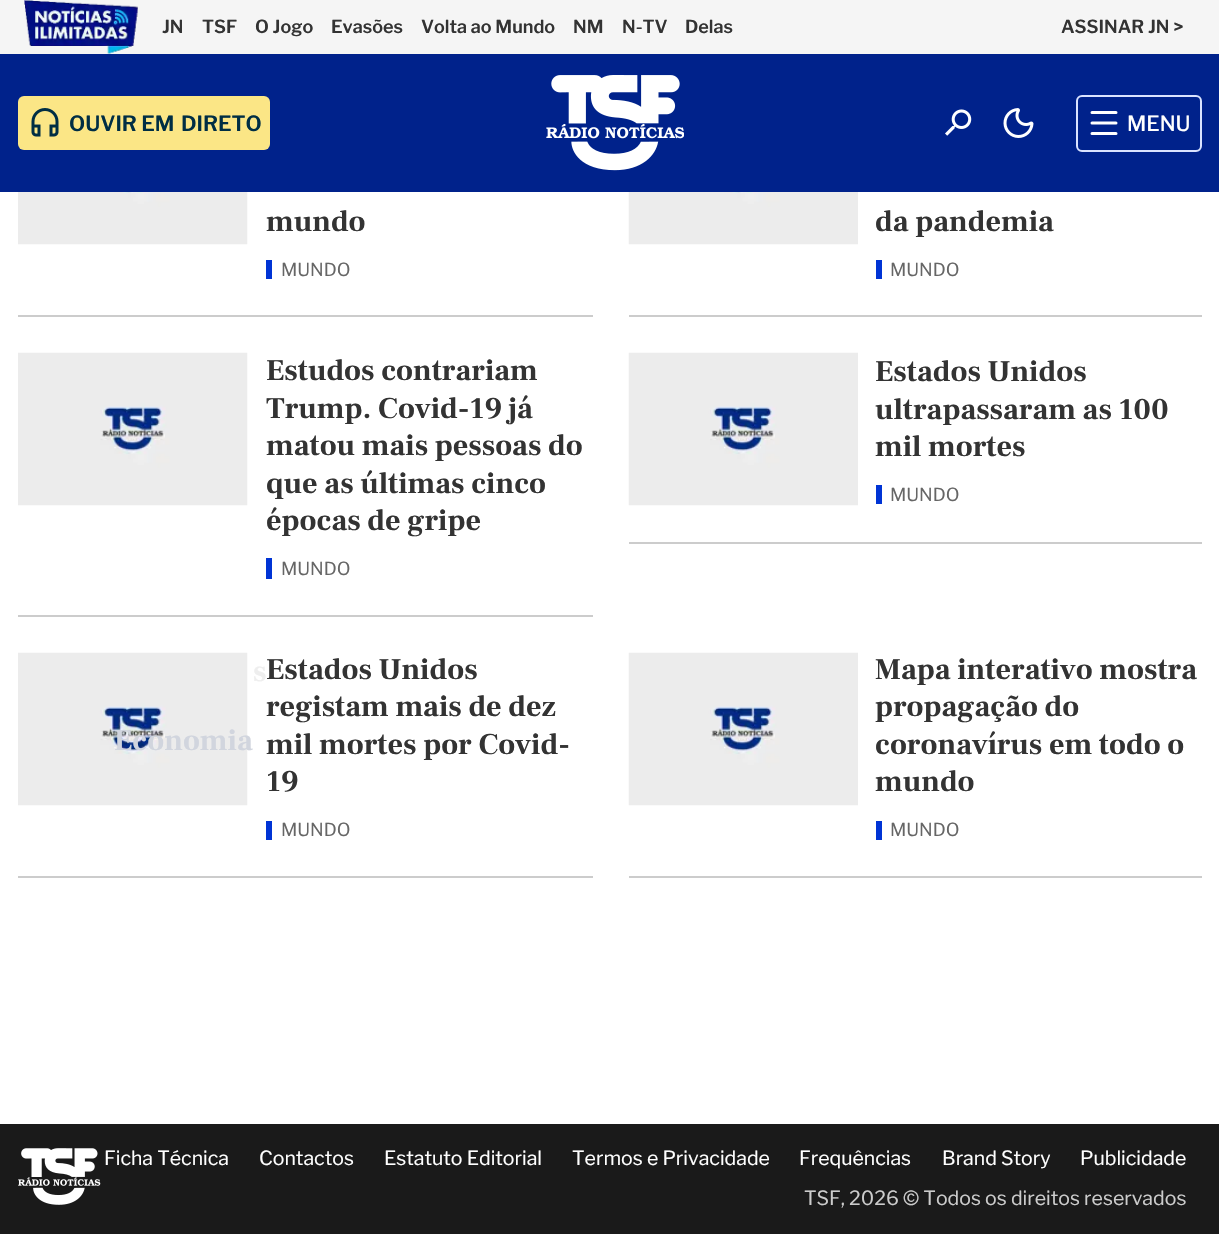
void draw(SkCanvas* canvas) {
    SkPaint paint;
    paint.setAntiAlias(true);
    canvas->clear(0xFFFFFFFF);
    paint.setColor(0xFFF5F5F5);
    canvas->drawRect(SkRect::MakeXYWH(0, 0, 1219, 54), paint);
    canvas->drawImageRect(SkImages::DeferredFromEncodedData(SkData::MakeFromFileName("img1.png")), SkRect::MakeXYWH(24, 0, 114, 54), SkSamplingOptions());
    SkFont font1(fontMgr->matchFamilyStyle("Libre Franklin", SkFontStyle(600, SkFontStyle::kNormal_Width, SkFontStyle::kUpright_Slant)), 18);
    font1.setSubpixel(true);
    paint.setColor(0xFF333333);
    canvas->drawString("JN", 162, 33, font1, paint);
    canvas->drawString("TSF", 202, 33, font1, paint);
    canvas->drawString("O Jogo", 255, 33, font1, paint);
    canvas->drawString("Evasões", 331, 33, font1, paint);
    canvas->drawString("Volta ao Mundo", 421, 33, font1, paint);
    canvas->drawString("NM", 573, 33, font1, paint);
    canvas->drawString("N-TV", 622, 33, font1, paint);
    canvas->drawString("Delas", 685, 33, font1, paint);
    canvas->drawString("ASSINAR JN >", 1061, 33, font1, paint);
    paint.setColor(0xFF00228B);
    canvas->drawRect(SkRect::MakeXYWH(0, 54, 1219, 138), paint);
    paint.setColor(0xFFFBE686);
    canvas->drawRoundRect(SkRect::MakeXYWH(18, 96, 252, 54), 6, 6, paint);
    canvas->drawImageRect(SkImages::DeferredFromEncodedData(SkData::MakeFromFileName("img2.png")), SkRect::MakeXYWH(31, 108, 28, 29), SkSamplingOptions());
    SkFont font2(fontMgr->matchFamilyStyle("Libre Franklin", SkFontStyle(600, SkFontStyle::kNormal_Width, SkFontStyle::kUpright_Slant)), 21);
    font2.setSubpixel(true);
    paint.setColor(0xFF002E44);
    canvas->drawString("OUVIR EM", 69, 131, font2, paint);
    canvas->drawString("DIRETO", 181, 131, font2, paint);
    canvas->drawImageRect(SkImages::DeferredFromEncodedData(SkData::MakeFromFileName("img3.png")), SkRect::MakeXYWH(546, 75, 138, 96), SkSamplingOptions());
    canvas->drawImageRect(SkImages::DeferredFromEncodedData(SkData::MakeFromFileName("img4.png")), SkRect::MakeXYWH(945, 109, 27, 27), SkSamplingOptions());
    canvas->drawImageRect(SkImages::DeferredFromEncodedData(SkData::MakeFromFileName("img5.png")), SkRect::MakeXYWH(1003, 108, 31, 30), SkSamplingOptions());
    paint.setStyle(SkPaint::kStroke_Style);
    paint.setStrokeWidth(2);
    paint.setColor(0xFFDAE3FF);
    canvas->drawRoundRect(SkRect::MakeXYWH(1077, 96, 124, 55), 5, 5, paint);
    paint.setStrokeWidth(3);
    paint.setStrokeCap(SkPaint::kRound_Cap);
    paint.setStrokeJoin(SkPaint::kRound_Join);
    paint.setColor(0xFFFFFFFF);
    canvas->drawPath(SkPathBuilder().moveTo(1092, 112.5f).lineTo(1116, 112.5f).moveTo(1092, 123).lineTo(1116, 123).moveTo(1092, 133.5f).lineTo(1116, 133.5f).detach(), paint);
    SkFont font3(fontMgr->matchFamilyStyle("Libre Franklin", SkFontStyle(500, SkFontStyle::kNormal_Width, SkFontStyle::kUpright_Slant)), 21);
    font3.setSubpixel(true);
    paint.setStyle(SkPaint::kFill_Style);
    canvas->drawString("MENU", 1127, 131, font3, paint);
    SkFont font4(fontMgr->matchFamilyStyle("Frank Ruhl Libre", SkFontStyle::Bold()), 30);
    font4.setSubpixel(true);
    paint.setColor(0xFFEEEEEE);
    canvas->drawString("s", 253, 681, font4, paint);
    canvas->drawImageRect(SkImages::DeferredFromEncodedData(SkData::MakeFromFileName("img8.png")), SkRect::MakeXYWH(18, 652, 230, 154), SkSamplingOptions());
    paint.setColor(0xFFD1D5DE);
    canvas->drawString("Economia", 114, 750, font4, paint);
    paint.setColor(0xFFCCCCCC);
    canvas->drawRect(SkRect::MakeXYWH(18, 315, 575, 2), paint);
    canvas->drawImageRect(SkImages::DeferredFromEncodedData(SkData::MakeFromFileName("img6.png")), SkRect::MakeXYWH(18, 192, 230, 53), SkSamplingOptions());
    paint.setColor(0xFF333333);
    canvas->drawString("mundo", 266, 231, font4, paint);
    paint.setColor(0xFF0034D5);
    canvas->drawRect(SkRect::MakeXYWH(266, 260, 6, 19), paint);
    SkFont font5(fontMgr->matchFamilyStyle("Libre Franklin", SkFontStyle::Normal()), 18);
    font5.setSubpixel(true);
    paint.setColor(0xFF666666);
    canvas->drawString("MUNDO", 281, 276, font5, paint);
    paint.setColor(0xFFCCCCCC);
    canvas->drawRect(SkRect::MakeXYWH(629, 315, 573, 2), paint);
    canvas->drawImageRect(SkImages::DeferredFromEncodedData(SkData::MakeFromFileName("img7.png")), SkRect::MakeXYWH(628, 192, 230, 53), SkSamplingOptions());
    paint.setColor(0xFF333333);
    canvas->drawString("da pandemia", 875, 231, font4, paint);
    paint.setColor(0xFF0034D5);
    canvas->drawRect(SkRect::MakeXYWH(876, 260, 6, 19), paint);
    paint.setColor(0xFF666666);
    canvas->drawString("MUNDO", 890, 276, font5, paint);
    paint.setColor(0xFFCCCCCC);
    canvas->drawRect(SkRect::MakeXYWH(18, 615, 575, 2), paint);
    canvas->drawImageRect(SkImages::DeferredFromEncodedData(SkData::MakeFromFileName("img8.png")), SkRect::MakeXYWH(18, 352, 230, 154), SkSamplingOptions());
    paint.setColor(0xFF333333);
    canvas->drawString("Estudos contrariam", 266, 380, font4, paint);
    canvas->drawString("Trump. Covid-19 já", 266, 418, font4, paint);
    canvas->drawString("matou mais pessoas do", 266, 455, font4, paint);
    canvas->drawString("que as últimas cinco", 266, 493, font4, paint);
    canvas->drawString("épocas de gripe", 266, 530, font4, paint);
    paint.setColor(0xFF0034D5);
    canvas->drawRect(SkRect::MakeXYWH(266, 558, 6, 21), paint);
    paint.setColor(0xFF666666);
    canvas->drawString("MUNDO", 281, 575, font5, paint);
    paint.setColor(0xFFCCCCCC);
    canvas->drawRect(SkRect::MakeXYWH(629, 542, 573, 2), paint);
    canvas->drawImageRect(SkImages::DeferredFromEncodedData(SkData::MakeFromFileName("img9.png")), SkRect::MakeXYWH(628, 352, 230, 154), SkSamplingOptions());
    paint.setColor(0xFF333333);
    canvas->drawString("Estados Unidos", 875, 381, font4, paint);
    canvas->drawString("ultrapassaram as 100", 875, 419, font4, paint);
    canvas->drawString("mil mortes", 875, 456, font4, paint);
    paint.setColor(0xFF0034D5);
    canvas->drawRect(SkRect::MakeXYWH(876, 485, 6, 19), paint);
    paint.setColor(0xFF666666);
    canvas->drawString("MUNDO", 890, 501, font5, paint);
    paint.setColor(0xFFCCCCCC);
    canvas->drawRect(SkRect::MakeXYWH(18, 876, 575, 2), paint);
    paint.setColor(0xFF333333);
    canvas->drawString("Estados Unidos", 266, 679, font4, paint);
    canvas->drawString("registam mais de dez", 266, 716, font4, paint);
    canvas->drawString("mil mortes por Covid-", 266, 754, font4, paint);
    canvas->drawString("19", 266, 791, font4, paint);
    paint.setColor(0xFF0034D5);
    canvas->drawRect(SkRect::MakeXYWH(266, 821, 6, 19), paint);
    paint.setColor(0xFF666666);
    canvas->drawString("MUNDO", 281, 836, font5, paint);
    paint.setColor(0xFFCCCCCC);
    canvas->drawRect(SkRect::MakeXYWH(629, 876, 573, 2), paint);
    canvas->drawImageRect(SkImages::DeferredFromEncodedData(SkData::MakeFromFileName("img9.png")), SkRect::MakeXYWH(628, 652, 230, 154), SkSamplingOptions());
    paint.setColor(0xFF333333);
    canvas->drawString("Mapa interativo mostra", 875, 679, font4, paint);
    canvas->drawString("propagação do", 875, 716, font4, paint);
    canvas->drawString("coronavírus em todo o", 875, 754, font4, paint);
    canvas->drawString("mundo", 875, 791, font4, paint);
    paint.setColor(0xFF0034D5);
    canvas->drawRect(SkRect::MakeXYWH(876, 821, 6, 19), paint);
    paint.setColor(0xFF666666);
    canvas->drawString("MUNDO", 890, 836, font5, paint);
    paint.setColor(0xFF1A1A1A);
    canvas->drawRect(SkRect::MakeXYWH(0, 1124, 1219, 110), paint);
    canvas->drawImageRect(SkImages::DeferredFromEncodedData(SkData::MakeFromFileName("img10.png")), SkRect::MakeXYWH(18, 1148, 83, 57), SkSamplingOptions());
    SkFont font6(fontMgr->matchFamilyStyle("Libre Franklin", SkFontStyle::Normal()), 19.5f);
    font6.setSubpixel(true);
    paint.setColor(0xFFFFFFFF);
    canvas->drawString("Ficha Técnica", 104, 1165, font6, paint);
    canvas->drawString("Contactos", 259, 1165, font6, paint);
    canvas->drawString("Estatuto Editorial", 384, 1165, font6, paint);
    canvas->drawString("Termos e Privacidade", 572, 1165, font6, paint);
    canvas->drawString("Frequências", 799, 1165, font6, paint);
    canvas->drawString("Brand Story", 942, 1165, font6, paint);
    canvas->drawString("Publicidade", 1080, 1165, font6, paint);
    paint.setColor(0xFFCCCCCC);
    canvas->drawString("TSF, 2026 © Todos os direitos reservados", 804, 1205, font6, paint);
}
